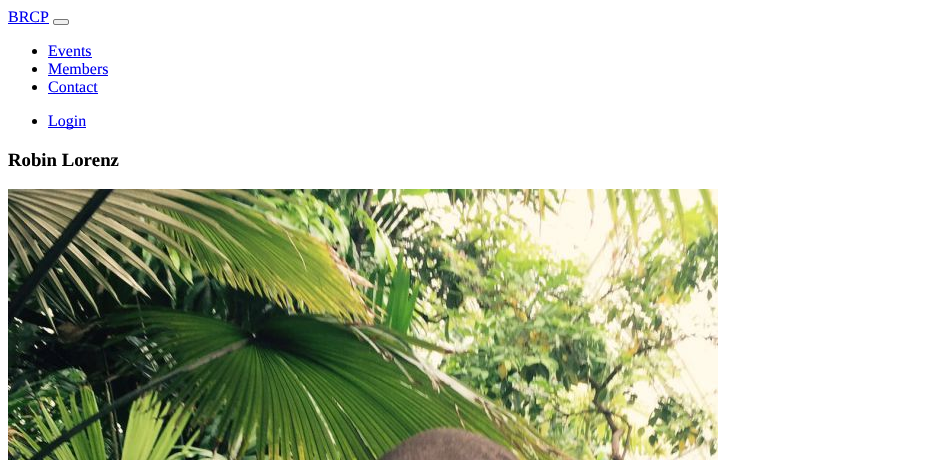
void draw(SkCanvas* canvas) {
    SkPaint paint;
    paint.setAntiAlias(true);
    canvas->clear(0xFFFFFFFF);
    SkFont font1(fontMgr->matchFamilyStyle("Liberation Serif", SkFontStyle::Normal()), 16);
    font1.setSubpixel(true);
    paint.setColor(0xFF0000EE);
    canvas->drawString("BRCP", 8, 22, font1, paint);
    canvas->drawRect(SkRect::MakeXYWH(8, 23, 41, 1), paint);
    paint.setColor(0xFFEFEFEF);
    canvas->drawRoundRect(SkRect::MakeXYWH(53.5f, 19.5f, 15, 5), 1.5f, 1.5f, paint);
    paint.setStyle(SkPaint::kStroke_Style);
    paint.setStrokeWidth(1);
    paint.setColor(0xFF767676);
    canvas->drawRoundRect(SkRect::MakeXYWH(53.5f, 19.5f, 15, 5), 1.5f, 1.5f, paint);
    paint.setStyle(SkPaint::kFill_Style);
    paint.setColor(0xFF000000);
    canvas->drawCircle(34.5f, 51.5f, 2.5f, paint);
    paint.setColor(0xFF0000EE);
    canvas->drawString("Events", 48, 56, font1, paint);
    canvas->drawRect(SkRect::MakeXYWH(48, 57, 44, 1), paint);
    paint.setColor(0xFF000000);
    canvas->drawCircle(34.5f, 69.5f, 2.5f, paint);
    paint.setColor(0xFF0000EE);
    canvas->drawString("Members", 48, 74, font1, paint);
    canvas->drawRect(SkRect::MakeXYWH(48, 75, 60, 1), paint);
    paint.setColor(0xFF000000);
    canvas->drawCircle(34.5f, 87.5f, 2.5f, paint);
    paint.setColor(0xFF0000EE);
    canvas->drawString("Contact", 48, 92, font1, paint);
    canvas->drawRect(SkRect::MakeXYWH(48, 93, 50, 1), paint);
    paint.setColor(0xFF000000);
    canvas->drawCircle(34.5f, 121.5f, 2.5f, paint);
    paint.setColor(0xFF0000EE);
    canvas->drawRect(SkRect::MakeXYWH(48, 127, 38, 1), paint);
    canvas->drawString("Login", 48, 126, font1, paint);
    SkFont font2(fontMgr->matchFamilyStyle("Liberation Serif", SkFontStyle::Bold()), 18.75f);
    font2.setSubpixel(true);
    paint.setColor(0xFF000000);
    canvas->drawString("Robin Lorenz", 8, 166, font2, paint);
    canvas->drawImageRect(SkImages::DeferredFromEncodedData(SkData::MakeFromFileName("img1.png")), SkRect::MakeXYWH(8, 189, 710, 271), SkSamplingOptions());
}
